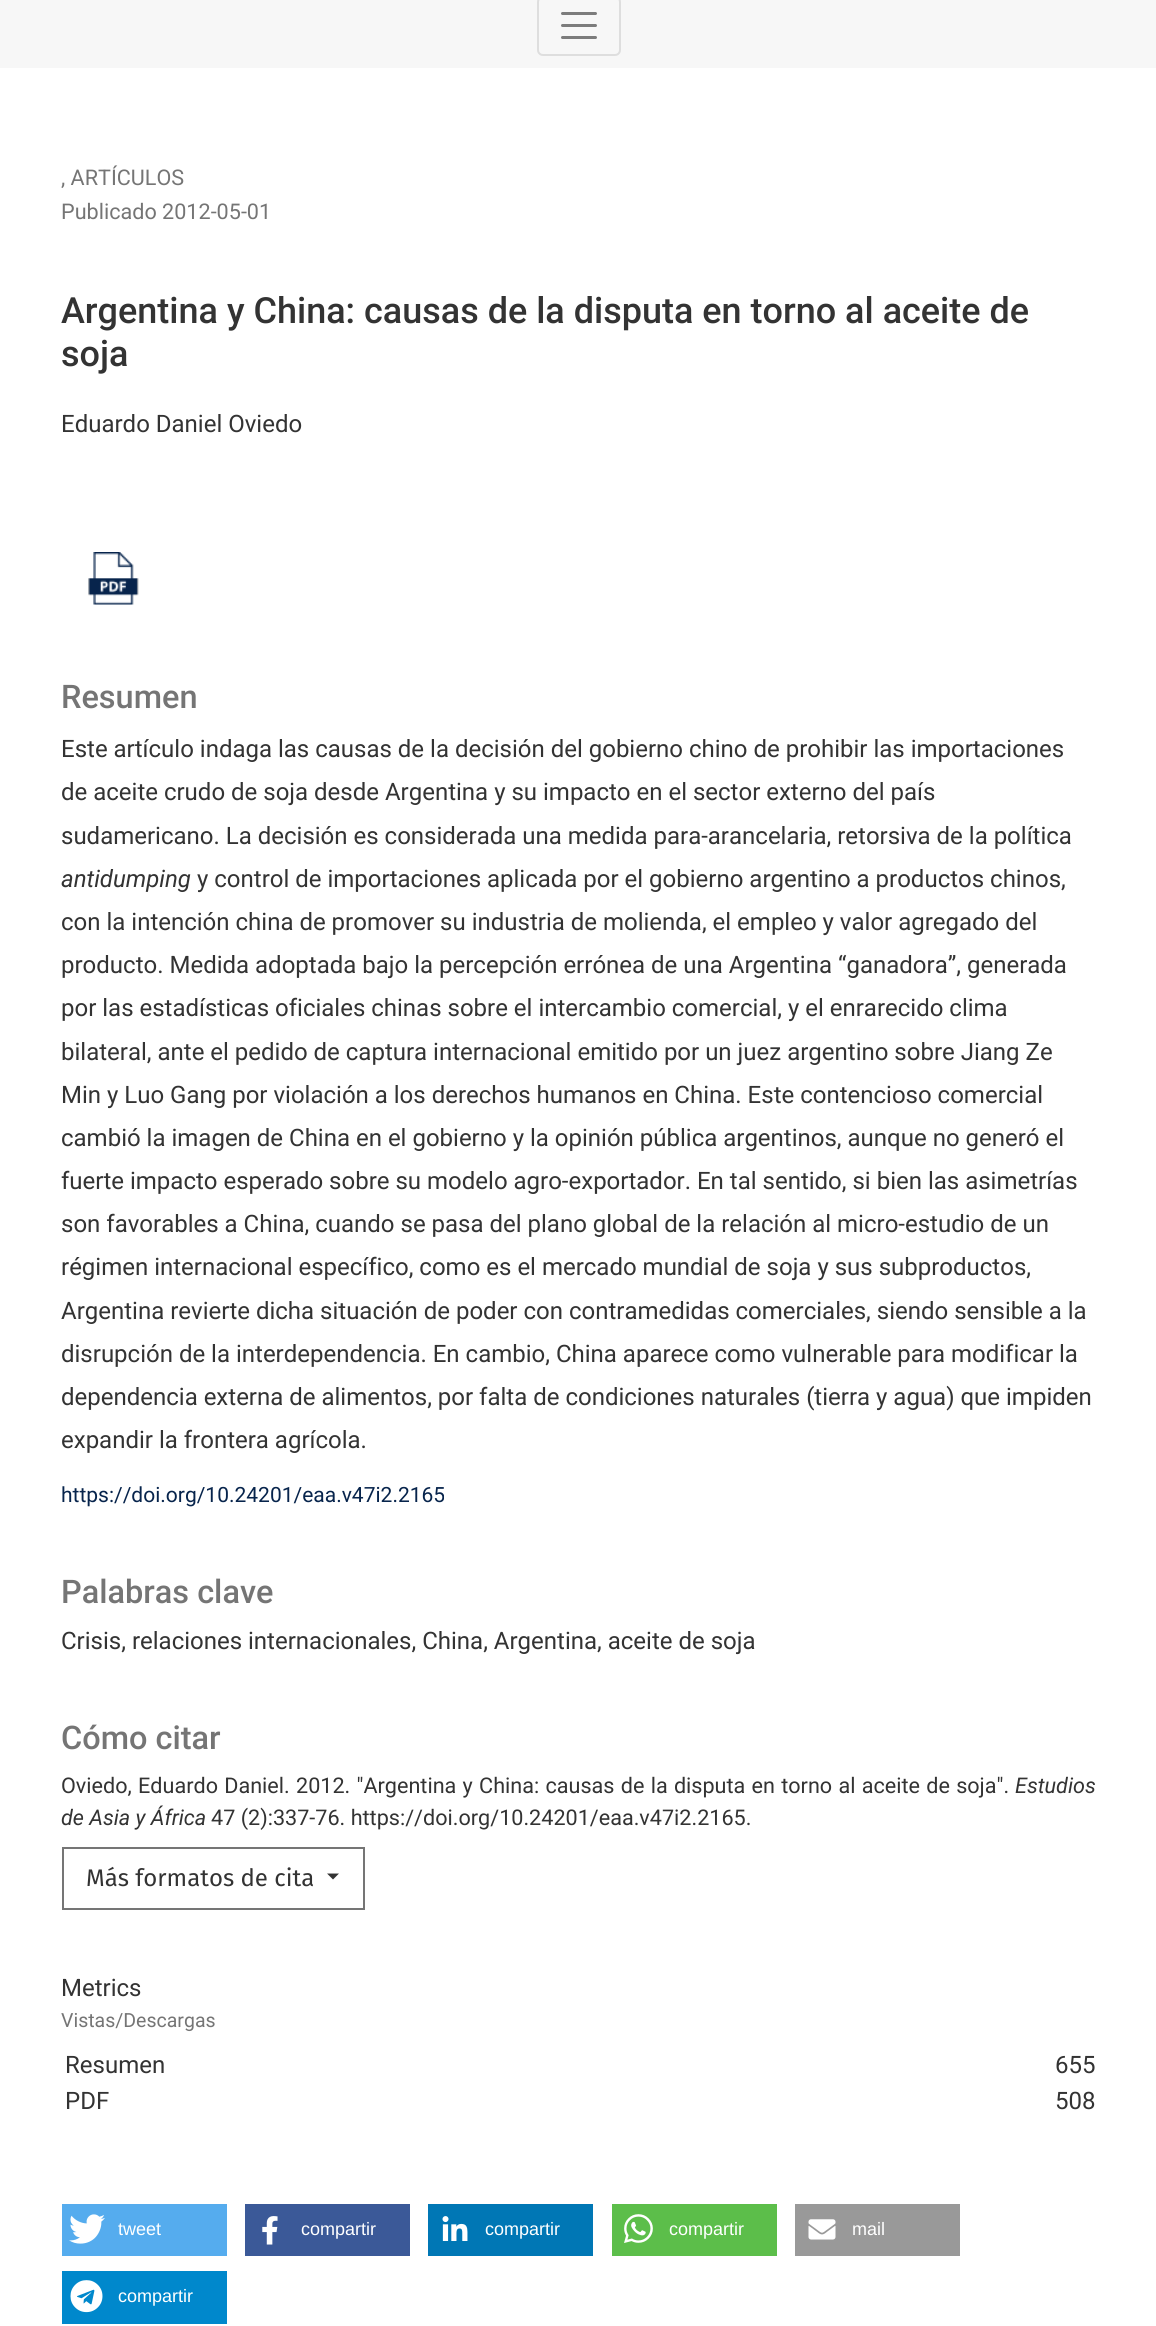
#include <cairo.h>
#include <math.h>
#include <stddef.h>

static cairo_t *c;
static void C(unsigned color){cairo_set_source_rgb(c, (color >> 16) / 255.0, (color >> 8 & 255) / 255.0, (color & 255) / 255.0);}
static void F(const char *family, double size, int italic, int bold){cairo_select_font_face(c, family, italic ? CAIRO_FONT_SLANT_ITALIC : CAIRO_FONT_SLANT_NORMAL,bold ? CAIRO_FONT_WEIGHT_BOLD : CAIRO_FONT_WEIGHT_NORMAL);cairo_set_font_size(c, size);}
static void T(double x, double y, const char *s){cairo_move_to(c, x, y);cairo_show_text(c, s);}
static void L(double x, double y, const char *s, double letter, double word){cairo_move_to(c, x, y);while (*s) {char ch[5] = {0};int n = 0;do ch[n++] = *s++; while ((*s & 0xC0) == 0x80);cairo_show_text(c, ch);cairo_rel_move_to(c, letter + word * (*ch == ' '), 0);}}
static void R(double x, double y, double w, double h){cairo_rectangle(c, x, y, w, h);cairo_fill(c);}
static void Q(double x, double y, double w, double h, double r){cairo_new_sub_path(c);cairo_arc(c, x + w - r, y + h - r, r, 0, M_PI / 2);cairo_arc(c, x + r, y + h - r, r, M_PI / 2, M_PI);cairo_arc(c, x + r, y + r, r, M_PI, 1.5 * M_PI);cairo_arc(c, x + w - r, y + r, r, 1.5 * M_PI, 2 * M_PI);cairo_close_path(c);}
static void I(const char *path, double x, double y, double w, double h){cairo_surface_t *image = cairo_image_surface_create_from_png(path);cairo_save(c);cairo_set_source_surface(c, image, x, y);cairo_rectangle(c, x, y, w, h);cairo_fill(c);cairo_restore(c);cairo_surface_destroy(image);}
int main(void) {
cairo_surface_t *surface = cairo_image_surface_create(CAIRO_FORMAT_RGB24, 1156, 2326);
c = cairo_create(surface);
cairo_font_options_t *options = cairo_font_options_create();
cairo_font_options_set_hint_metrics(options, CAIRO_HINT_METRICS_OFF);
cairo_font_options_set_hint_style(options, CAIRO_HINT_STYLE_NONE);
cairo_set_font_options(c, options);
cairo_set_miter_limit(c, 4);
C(0xffffff);
cairo_paint(c);
C(0xf7f7f7);
R(0,0,1156,68);
Q(538,-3,82,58,5);
C(0xdedede);
cairo_stroke(c);
cairo_new_path(c);
cairo_move_to(c,562.5,13.5);
cairo_line_to(c,595.5,13.5);
cairo_move_to(c,562.5,25.5);
cairo_line_to(c,595.5,25.5);
cairo_move_to(c,562.5,37.5);
cairo_line_to(c,595.5,37.5);
C(0x7c7c7c);
cairo_set_line_width(c,3);
cairo_set_line_cap(c,CAIRO_LINE_CAP_ROUND);
cairo_stroke(c);
F("Roboto",21.6,0,0);
C(0x757575);
T(61,185,", ARTÍCULOS");
T(61,219,"Publicado 2012-05-01");
F("Roboto Medium",36,0,0);
C(0x333333);
T(61,323,"Argentina y China: causas de la disputa en torno al aceite de");
T(61,366,"soja");
F("Roboto",24,0,0);
T(61,432,"Eduardo Daniel Oviedo");
I("1.png",88,552,51,53);
F("Roboto Medium",32.5,0,0);
C(0x757575);
T(61,708,"Resumen");
F("Roboto",24,0,0);
C(0x333333);
T(61,757,"Este artículo indaga las causas de la decisión del gobierno chino de prohibir las importaciones");
T(61,800,"de aceite crudo de soja desde Argentina y su impacto en el sector externo del país");
T(61,844,"sudamericano. La decisión es considerada una medida para-arancelaria, retorsiva de la política");
F("Roboto",24,1,0);
T(61,887,"antidumping");
F("Roboto",24,0,0);
T(197,887,"y control de importaciones aplicada por el gobierno argentino a productos chinos,");
T(61,930,"con la intención china de promover su industria de molienda, el empleo y valor agregado del");
T(61,973,"producto. Medida adoptada bajo la percepción errónea de una Argentina “ganadora”, generada");
T(61,1016,"por las estadísticas oficiales chinas sobre el intercambio comercial, y el enrarecido clima");
T(61,1060,"bilateral, ante el pedido de captura internacional emitido por un juez argentino sobre Jiang Ze");
T(61,1103,"Min y Luo Gang por violación a los derechos humanos en China. Este contencioso comercial");
T(61,1146,"cambió la imagen de China en el gobierno y la opinión pública argentinos, aunque no generó el");
T(61,1189,"fuerte impacto esperado sobre su modelo agro-exportador. En tal sentido, si bien las asimetrías");
T(61,1232,"son favorables a China, cuando se pasa del plano global de la relación al micro-estudio de un");
T(61,1275,"régimen internacional específico, como es el mercado mundial de soja y sus subproductos,");
T(61,1319,"Argentina revierte dicha situación de poder con contramedidas comerciales, siendo sensible a la");
T(61,1362,"disrupción de la interdependencia. En cambio, China aparece como vulnerable para modificar la");
T(61,1405,"dependencia externa de alimentos, por falta de condiciones naturales (tierra y agua) que impiden");
T(61,1448,"expandir la frontera agrícola.");
F("Roboto",21,0,0);
C(0x07244c);
T(61,1502,"https://doi.org/10.24201/eaa.v47i2.2165");
F("Roboto Medium",32.5,0,0);
C(0x757575);
T(61,1603,"Palabras clave");
F("Roboto",24,0,0);
C(0x333333);
T(61,1649,"Crisis, relaciones internacionales, China, Argentina, aceite de soja");
F("Roboto Medium",32.5,0,0);
C(0x757575);
T(61,1749,"Cómo citar");
F("Roboto",21.6,0,0);
C(0x333333);
L(61,1793,"Oviedo, Eduardo Daniel. 2012. \"Argentina y China: causas de la disputa en torno al aceite de soja\".",0,.9);
F("Roboto",21.6,1,0);
T(1015,1793,"Estudios");
T(61,1825,"de Asia y África");
F("Roboto",21.6,0,0);
T(211,1825,"47 (2):337-76. https://doi.org/10.24201/eaa.v47i2.2165.");
cairo_rectangle(c,63,1848,301,61);
C(0x757575);
cairo_set_line_width(c,2);
cairo_set_line_cap(c,CAIRO_LINE_CAP_BUTT);
cairo_stroke(c);
F("Fira Sans",24,0,0);
C(0x333333);
T(86,1886,"Más formatos de cita");
cairo_new_path(c);
cairo_move_to(c,327,1873.5);
cairo_line_to(c,339,1873.5);
cairo_line_to(c,333,1879.5);
cairo_close_path(c);
cairo_fill(c);
F("Roboto",24,0,0);
T(61,1996,"Metrics");
F("Roboto",19.5,0,0);
C(0x757575);
T(61,2027,"Vistas/Descargas");
F("Roboto",24,0,0);
C(0x333333);
T(65,2073,"Resumen");
T(1055,2073,"655");
T(65,2109,"PDF");
T(1055,2109,"508");
C(0x55acee);
R(62,2204,165,52);
I("2.png",69,2214,36,30);
F("Liberation Sans",18,0,0);
C(0xffffff);
T(118,2235,"tweet");
C(0x3b5998);
R(245,2204,165,52);
I("3.png",262,2216,16,29);
C(0xffffff);
T(301,2235,"compartir");
C(0x0077b5);
R(428,2204,165,52);
I("4.png",442,2216,26,25);
C(0xffffff);
T(485,2235,"compartir");
C(0x5cbe4a);
R(612,2204,165,52);
I("5.png",624,2214,29,29);
C(0xffffff);
T(669,2235,"compartir");
C(0x999999);
R(795,2204,165,52);
I("6.png",808,2219,28,21);
C(0xffffff);
T(852,2235,"mail");
C(0x0088cc);
R(62,2271,165,53);
I("7.png",70,2280,33,33);
C(0xffffff);
T(118,2302,"compartir");
cairo_surface_write_to_png(surface, "o.png");
cairo_font_options_destroy(options);
cairo_destroy(c);
cairo_surface_destroy(surface);
return 0;
}
